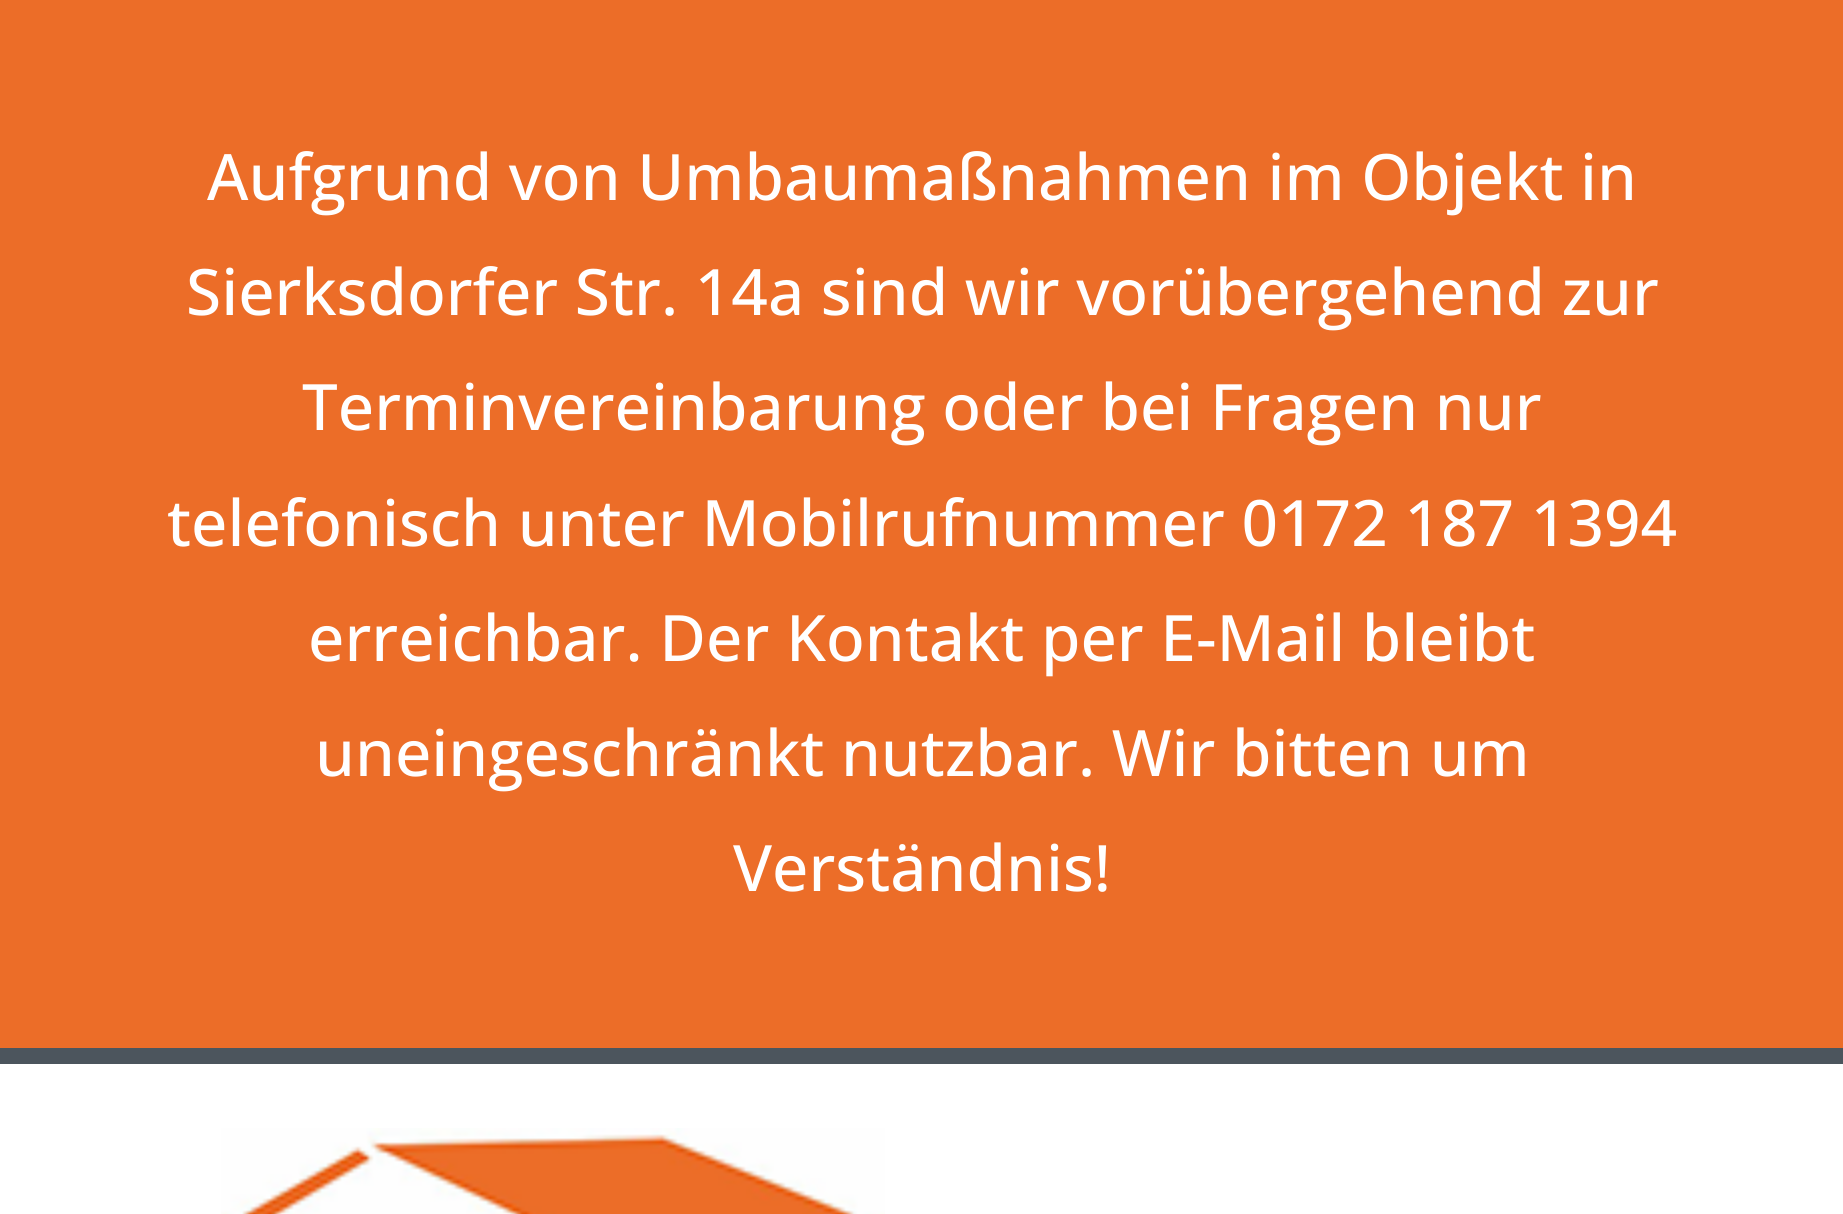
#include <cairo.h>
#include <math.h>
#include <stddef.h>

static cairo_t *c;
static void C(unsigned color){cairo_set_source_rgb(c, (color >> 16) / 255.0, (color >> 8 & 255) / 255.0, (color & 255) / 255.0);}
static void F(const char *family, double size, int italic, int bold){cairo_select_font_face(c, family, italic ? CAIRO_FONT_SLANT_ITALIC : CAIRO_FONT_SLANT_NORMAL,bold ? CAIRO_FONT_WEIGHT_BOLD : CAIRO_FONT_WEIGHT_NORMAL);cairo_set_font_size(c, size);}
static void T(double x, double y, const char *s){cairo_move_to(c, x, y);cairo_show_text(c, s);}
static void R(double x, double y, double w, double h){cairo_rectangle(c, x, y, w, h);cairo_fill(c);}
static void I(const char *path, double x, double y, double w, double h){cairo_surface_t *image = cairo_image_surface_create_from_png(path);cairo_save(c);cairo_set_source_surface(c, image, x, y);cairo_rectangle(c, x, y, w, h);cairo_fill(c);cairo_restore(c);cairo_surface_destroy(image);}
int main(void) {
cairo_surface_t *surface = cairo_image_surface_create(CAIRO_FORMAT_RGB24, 1843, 1214);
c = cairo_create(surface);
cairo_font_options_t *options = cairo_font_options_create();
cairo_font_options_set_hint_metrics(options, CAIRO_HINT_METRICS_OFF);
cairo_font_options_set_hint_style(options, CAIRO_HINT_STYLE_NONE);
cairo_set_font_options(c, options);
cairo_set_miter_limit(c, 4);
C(0xffffff);
cairo_paint(c);
C(0xec6d28);
R(0,0,1843,1048);
C(0x4c555d);
R(0,1048,1843,16);
F("Open Sans Medium",64,0,0);
C(0xffffff);
T(207,200,"Aufgrund von Umbaumaßnahmen im Objekt in");
T(186,315,"Sierksdorfer Str. 14a sind wir vorübergehend zur");
T(302,430,"Terminvereinbarung oder bei Fragen nur");
T(167,546,"telefonisch unter Mobilrufnummer 0172 187 1394");
T(308,661,"erreichbar. Der Kontakt per E-Mail bleibt");
T(315,776,"uneingeschränkt nutzbar. Wir bitten um");
T(733,891,"Verständnis!");
I("1.png",221,1128,664,86);
cairo_surface_write_to_png(surface, "o.png");
cairo_font_options_destroy(options);
cairo_destroy(c);
cairo_surface_destroy(surface);
return 0;
}
